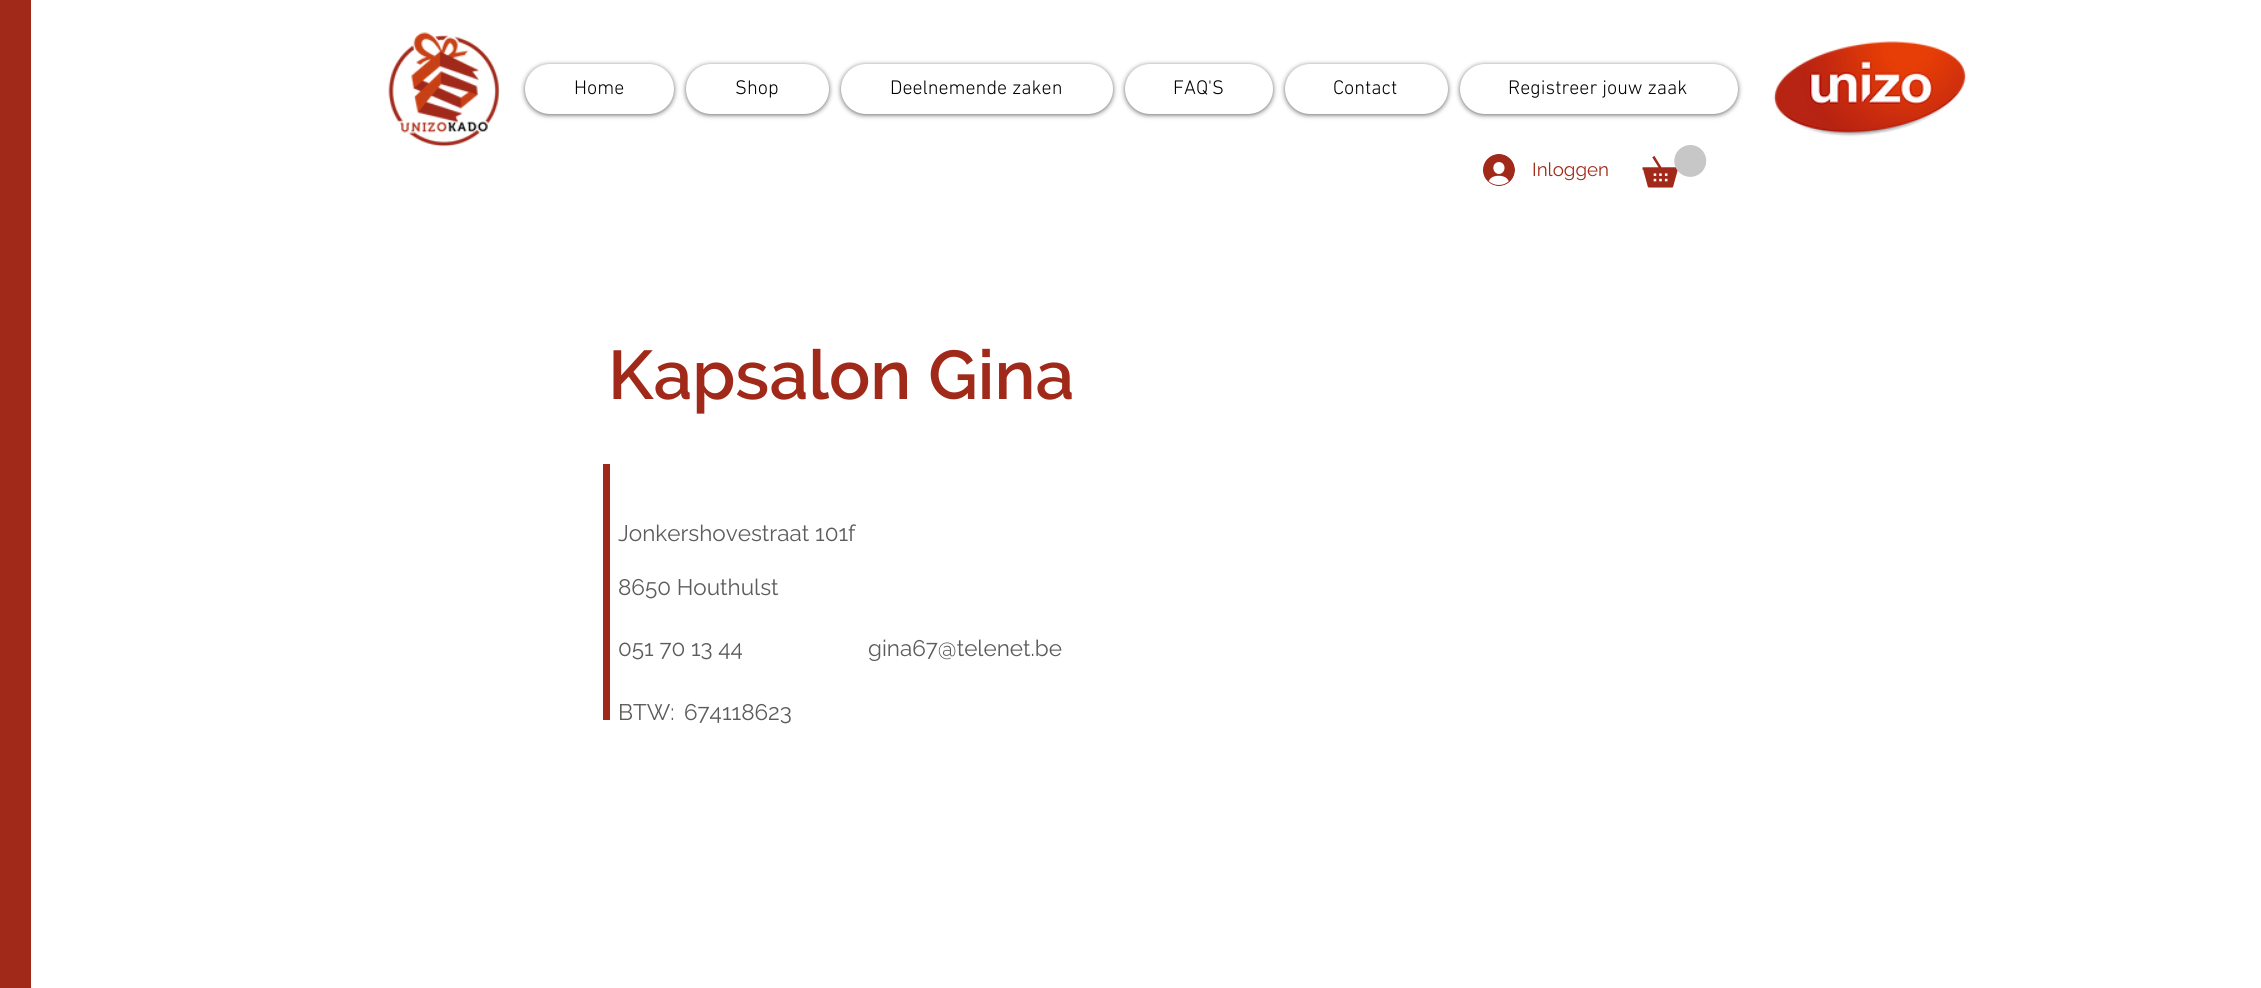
#include <cairo.h>
#include <math.h>
#include <stddef.h>

static cairo_t *c;
static void C(unsigned color){cairo_set_source_rgb(c, (color >> 16) / 255.0, (color >> 8 & 255) / 255.0, (color & 255) / 255.0);}
static void F(const char *family, double size, int italic, int bold){cairo_select_font_face(c, family, italic ? CAIRO_FONT_SLANT_ITALIC : CAIRO_FONT_SLANT_NORMAL,bold ? CAIRO_FONT_WEIGHT_BOLD : CAIRO_FONT_WEIGHT_NORMAL);cairo_set_font_size(c, size);}
static void T(double x, double y, const char *s){cairo_move_to(c, x, y);cairo_show_text(c, s);}
static void R(double x, double y, double w, double h){cairo_rectangle(c, x, y, w, h);cairo_fill(c);}
static void Q(double x, double y, double w, double h, double r){cairo_new_sub_path(c);cairo_arc(c, x + w - r, y + h - r, r, 0, M_PI / 2);cairo_arc(c, x + r, y + h - r, r, M_PI / 2, M_PI);cairo_arc(c, x + r, y + r, r, M_PI, 1.5 * M_PI);cairo_arc(c, x + w - r, y + r, r, 1.5 * M_PI, 2 * M_PI);cairo_close_path(c);}
static void S(double x, double y, double w, double h, double r, double blur, double alpha){cairo_push_group_with_content(c, CAIRO_CONTENT_ALPHA);cairo_set_operator(c, CAIRO_OPERATOR_SOURCE);for (int i = 15; i >= -15 && fmin(w, h) + blur * i / 3 > 0; i -= 2) {double e = blur * i / 6;cairo_set_source_rgba(c, 0, 0, 0, alpha * erfc((i - 1) / 8.5) / 2);Q(x - e, y - e, w + 2 * e, h + 2 * e, fmax(0, fmin(r + e + blur * .6, fmin(w, h) / 2 + e)));cairo_fill(c);}cairo_pattern_t *soft = cairo_pop_group(c);cairo_mask(c, soft);cairo_pattern_destroy(soft);}
static void I(const char *path, double x, double y, double w, double h){cairo_surface_t *image = cairo_image_surface_create_from_png(path);cairo_save(c);cairo_set_source_surface(c, image, x, y);cairo_rectangle(c, x, y, w, h);cairo_fill(c);cairo_restore(c);cairo_surface_destroy(image);}
int main(void) {
cairo_surface_t *surface = cairo_image_surface_create(CAIRO_FORMAT_RGB24, 2261, 988);
c = cairo_create(surface);
cairo_font_options_t *options = cairo_font_options_create();
cairo_font_options_set_hint_metrics(options, CAIRO_HINT_METRICS_OFF);
cairo_font_options_set_hint_style(options, CAIRO_HINT_STYLE_NONE);
cairo_set_font_options(c, options);
cairo_set_miter_limit(c, 4);
C(0xffffff);
cairo_paint(c);
C(0xa0291a);
R(0,0,31,988);
I("1.png",388,32,112,115);
C(0x000000);
S(525,65,149,50,25,2.5,.6);
C(0xffffff);
Q(525,64,149,50,25);
cairo_fill(c);
F("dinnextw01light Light",20,0,0);
C(0x000000);
T(574,94,"Home");
C(0x000000);
S(686,65,143,50,25,2.5,.6);
C(0xffffff);
Q(686,64,143,50,25);
cairo_fill(c);
C(0x000000);
T(735,94,"Shop");
C(0x000000);
S(841,65,272,50,25,2.5,.6);
C(0xffffff);
Q(841,64,272,50,25);
cairo_fill(c);
C(0x000000);
T(890,94,"Deelnemende zaken");
C(0x000000);
S(1125,65,148,50,25,2.5,.6);
C(0xffffff);
Q(1125,64,148,50,25);
cairo_fill(c);
C(0x000000);
T(1173,94,"FAQ'S");
C(0x000000);
S(1285,65,163,50,25,2.5,.6);
C(0xffffff);
Q(1285,64,163,50,25);
cairo_fill(c);
C(0x000000);
T(1333,94,"Contact");
C(0x000000);
S(1460,65,278,50,25,2.5,.6);
C(0xffffff);
Q(1460,64,278,50,25);
cairo_fill(c);
C(0x000000);
T(1508,94,"Registreer jouw zaak");
I("2.png",1773,41,194,96);
I("3.png",1483,154,32,32);
F("Raleway",18.75,0,0);
C(0xa0291a);
T(1532,176,"Inloggen");
I("4.png",1642,145,65,43);
F("Raleway SemiBold",68.75,0,0);
T(608,399,"Kapsalon Gina");
R(603,464,7,256);
F("Raleway",22.5,0,0);
C(0x5c5c5c);
T(618,541,"Jonkershovestraat 101f");
T(618,595,"8650 Houthulst");
T(618,656,"051 70 13 44");
T(868,656,"gina67@telenet.be");
T(618,720,"BTW:");
T(684,720,"674118623");
cairo_surface_write_to_png(surface, "o.png");
cairo_font_options_destroy(options);
cairo_destroy(c);
cairo_surface_destroy(surface);
return 0;
}
